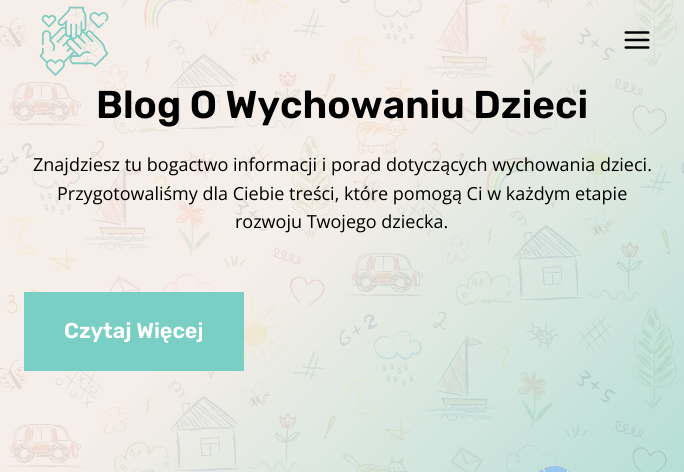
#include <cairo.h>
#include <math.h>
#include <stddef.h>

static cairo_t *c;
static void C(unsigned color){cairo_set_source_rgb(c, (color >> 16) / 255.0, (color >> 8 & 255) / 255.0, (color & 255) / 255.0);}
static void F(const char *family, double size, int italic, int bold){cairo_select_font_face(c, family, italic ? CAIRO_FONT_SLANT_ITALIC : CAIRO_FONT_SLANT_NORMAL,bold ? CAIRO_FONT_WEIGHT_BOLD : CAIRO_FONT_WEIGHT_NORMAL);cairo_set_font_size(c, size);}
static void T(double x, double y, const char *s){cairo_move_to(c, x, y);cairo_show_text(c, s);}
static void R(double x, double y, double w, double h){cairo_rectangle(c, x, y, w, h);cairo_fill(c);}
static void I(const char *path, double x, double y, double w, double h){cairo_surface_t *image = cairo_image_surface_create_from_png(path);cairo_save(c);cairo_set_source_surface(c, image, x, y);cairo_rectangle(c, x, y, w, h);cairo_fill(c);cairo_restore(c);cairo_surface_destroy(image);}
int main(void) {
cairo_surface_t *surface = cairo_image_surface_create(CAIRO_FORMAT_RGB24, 684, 472);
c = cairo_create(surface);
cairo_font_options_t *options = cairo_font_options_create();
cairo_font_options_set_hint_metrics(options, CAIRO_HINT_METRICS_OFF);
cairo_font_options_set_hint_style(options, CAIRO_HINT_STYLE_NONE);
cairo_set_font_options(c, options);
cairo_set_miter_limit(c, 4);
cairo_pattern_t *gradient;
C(0xffffff);
cairo_paint(c);
gradient = cairo_pattern_create_linear(-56,56,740,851);
cairo_pattern_add_color_stop_rgba(gradient,.33,0.961,0.925,0.898,1);
cairo_pattern_add_color_stop_rgba(gradient,1,0.478,0.812,0.769,1);
cairo_set_source(c,gradient);
cairo_pattern_destroy(gradient);
R(0,0,684,472);
I("3.png",0,0,684,472);
I("1.png",39,6,70,70);
I("2.png",624,31,26,18);
F("Rubik SemiBold",38.75,0,0);
C(0x000000);
T(96,118,"Blog O Wychowaniu Dzieci");
F("Open Sans",18,0,0);
T(33,171,"Znajdziesz tu bogactwo informacji i porad dotyczących wychowania dzieci.");
T(57,200,"Przygotowaliśmy dla Ciebie treści, które pomogą Ci w każdym etapie");
T(235,228,"rozwoju Twojego dziecka.");
C(0x7acfc4);
R(24,292,220,79);
F("Rubik SemiBold",21.5,0,0);
C(0xffffff);
T(64,338,"Czytaj Więcej");
I("4.png",538,465,33,7);
cairo_surface_write_to_png(surface, "o.png");
cairo_font_options_destroy(options);
cairo_destroy(c);
cairo_surface_destroy(surface);
return 0;
}
